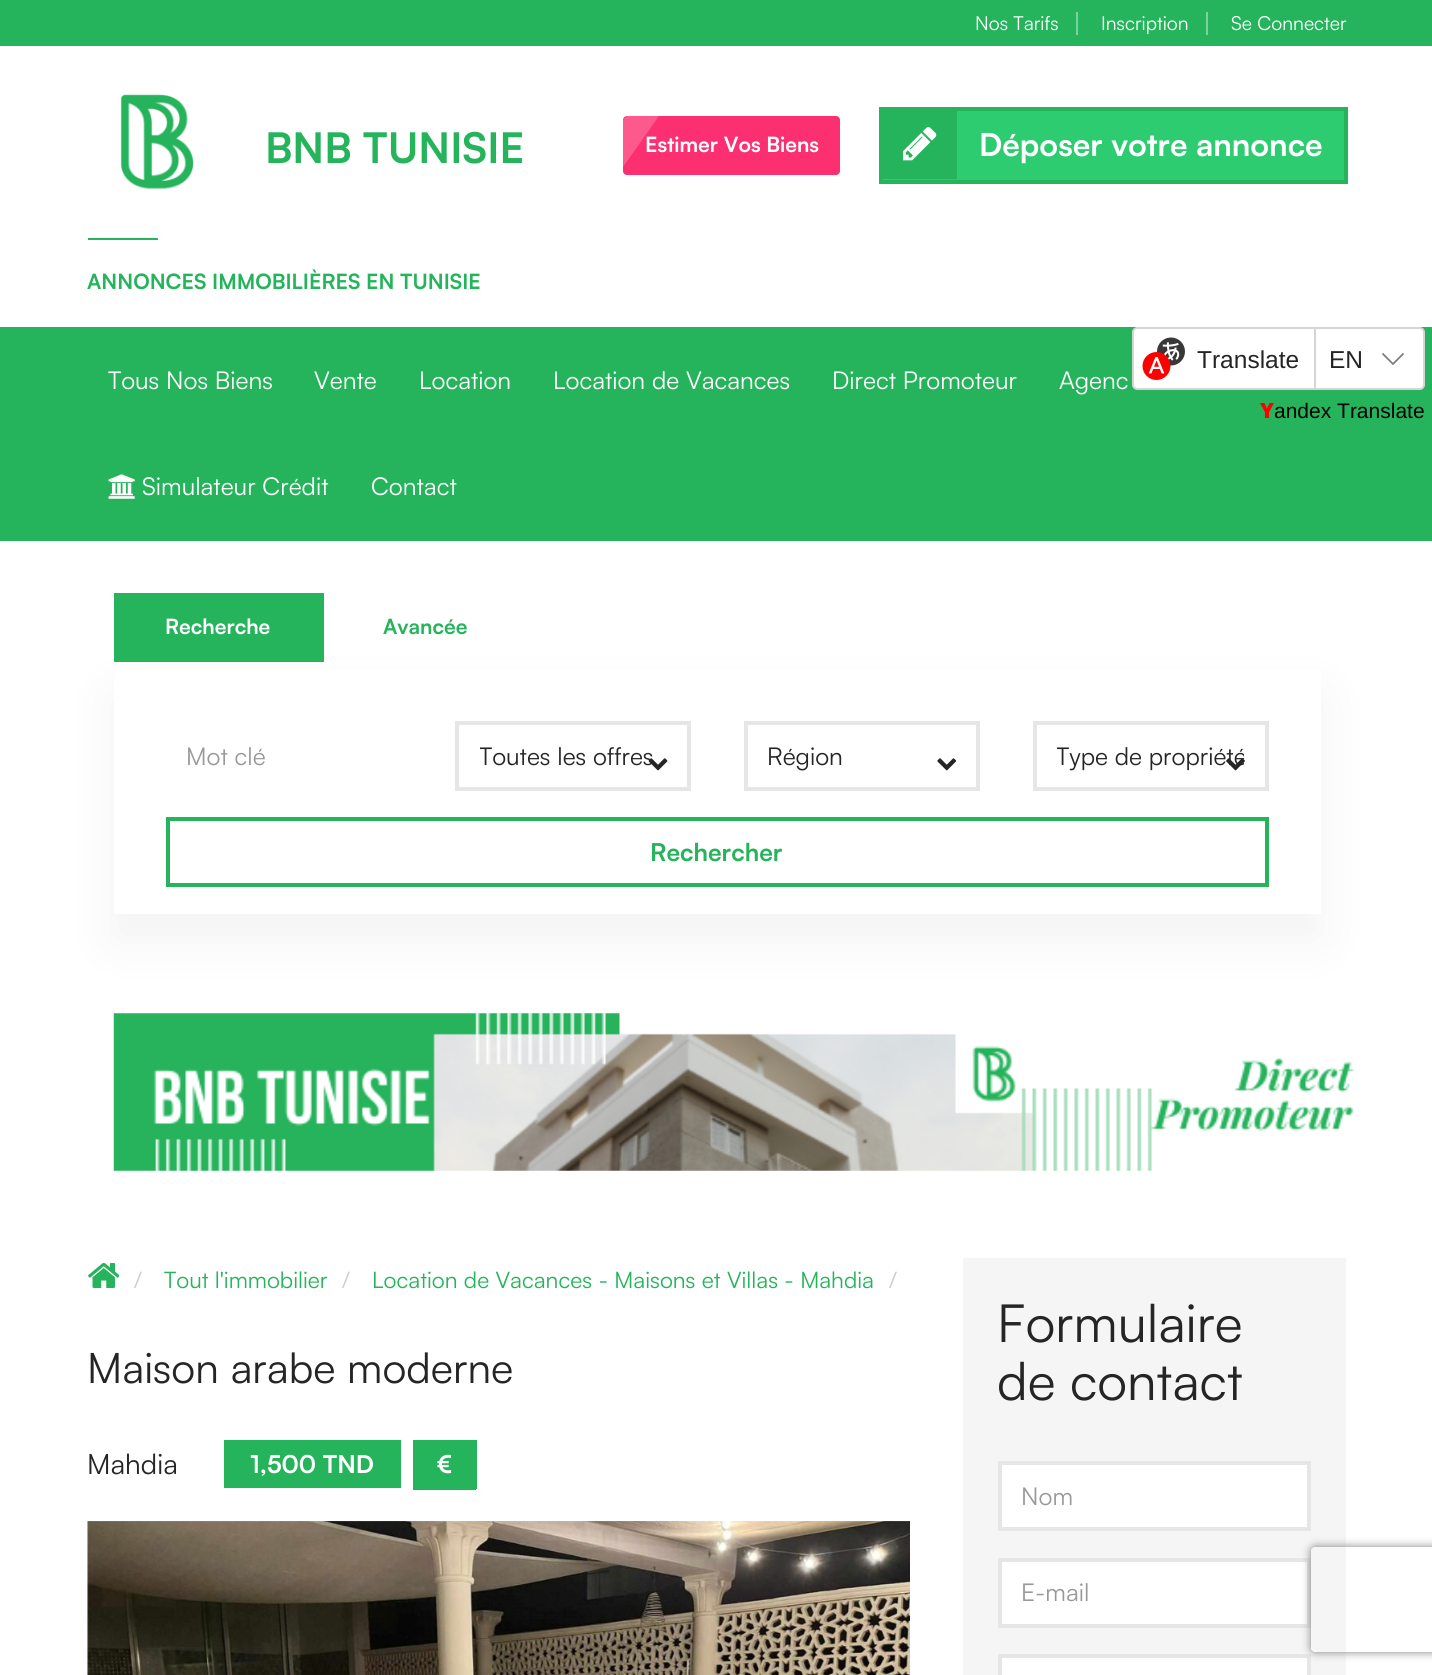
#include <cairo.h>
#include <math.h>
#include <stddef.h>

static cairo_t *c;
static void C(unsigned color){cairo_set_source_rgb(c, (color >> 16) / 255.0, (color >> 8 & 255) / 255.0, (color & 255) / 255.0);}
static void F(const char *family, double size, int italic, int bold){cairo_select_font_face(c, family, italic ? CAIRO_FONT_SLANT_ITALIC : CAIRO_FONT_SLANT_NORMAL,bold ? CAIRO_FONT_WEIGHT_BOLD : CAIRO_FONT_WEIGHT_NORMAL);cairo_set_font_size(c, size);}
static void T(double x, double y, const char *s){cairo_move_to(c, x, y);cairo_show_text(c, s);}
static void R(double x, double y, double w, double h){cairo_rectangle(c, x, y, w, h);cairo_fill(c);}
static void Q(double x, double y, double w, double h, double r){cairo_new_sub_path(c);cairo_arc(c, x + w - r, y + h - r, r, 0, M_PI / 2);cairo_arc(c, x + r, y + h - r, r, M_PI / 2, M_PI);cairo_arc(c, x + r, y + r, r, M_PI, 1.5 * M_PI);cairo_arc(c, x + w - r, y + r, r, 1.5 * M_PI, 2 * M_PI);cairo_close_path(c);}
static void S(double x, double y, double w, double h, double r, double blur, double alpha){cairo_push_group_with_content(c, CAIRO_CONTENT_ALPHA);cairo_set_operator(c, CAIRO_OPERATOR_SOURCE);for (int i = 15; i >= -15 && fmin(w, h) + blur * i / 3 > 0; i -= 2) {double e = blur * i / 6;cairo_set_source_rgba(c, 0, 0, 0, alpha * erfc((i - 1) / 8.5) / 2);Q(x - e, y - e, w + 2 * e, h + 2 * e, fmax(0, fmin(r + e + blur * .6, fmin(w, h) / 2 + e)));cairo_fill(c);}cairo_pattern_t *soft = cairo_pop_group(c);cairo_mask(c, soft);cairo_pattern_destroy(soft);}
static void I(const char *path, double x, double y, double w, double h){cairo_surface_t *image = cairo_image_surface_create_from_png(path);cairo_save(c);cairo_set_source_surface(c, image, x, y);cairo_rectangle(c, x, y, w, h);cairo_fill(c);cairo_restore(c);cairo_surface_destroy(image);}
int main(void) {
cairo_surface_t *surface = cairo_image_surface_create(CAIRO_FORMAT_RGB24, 1432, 1675);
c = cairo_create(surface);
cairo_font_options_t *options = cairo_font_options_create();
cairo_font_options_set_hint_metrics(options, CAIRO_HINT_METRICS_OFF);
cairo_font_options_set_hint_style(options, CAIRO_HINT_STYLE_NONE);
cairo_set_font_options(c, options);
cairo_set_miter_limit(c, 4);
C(0xffffff);
cairo_paint(c);
C(0x25b45b);
R(0,0,1432,46);
C(0x7cd29d);
R(1076,12,2,23);
F("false",19.25,0,0);
C(0xffffff);
T(975,30,"Nos Tarifs");
C(0x7cd29d);
R(1206,12,2,23);
C(0xffffff);
T(1101,30,"Inscription");
T(1231,30,"Se Connecter");
I("1.png",120,94,74,96);
F("false",42,0,1);
C(0x25b45b);
T(265,163,"BNB TUNISIE");
R(88,238,70,2);
F("false",21,0,1);
T(87,289,"ANNONCES IMMOBILIÈRES EN TUNISIE");
C(0xfc2f70);
Q(623,116,217,59,4);
cairo_fill(c);
cairo_set_source_rgba(c,1,1,1,0.2);
cairo_new_path(c);
cairo_move_to(c,627,116);
cairo_line_to(c,659,116);
cairo_line_to(c,623,167);
cairo_line_to(c,623,120);
cairo_line_to(c,626,116);
cairo_close_path(c);
cairo_fill(c);
C(0xffffff);
T(645,152,"Estimer Vos Biens");
C(0x2ecc71);
cairo_rectangle(c,881,109,465,73);
cairo_fill_preserve(c);
C(0x25b45b);
cairo_set_line_width(c,4);
cairo_stroke(c);
R(883,111,74,68);
I("2.png",903,127,34,34);
F("false",31.5,0,1);
C(0xffffff);
T(979,156,"Déposer votre annonce");
C(0x25b45b);
R(0,327,1432,214);
F("false",24.5,0,0);
C(0xffffff);
T(108,389,"Tous Nos Biens");
T(314,389,"Vente");
T(419,389,"Location");
T(553,389,"Location de Vacances");
T(832,389,"Direct Promoteur");
T(1059,389,"Agenc");
cairo_new_path(c);
cairo_move_to(c,1137,328);
cairo_line_to(c,1315,328);
cairo_line_to(c,1315,389);
cairo_line_to(c,1137,389);
cairo_curve_to(c,1135,389,1133,387,1133,385);
cairo_line_to(c,1133,332);
cairo_curve_to(c,1133,330,1135,328,1137,328);
cairo_close_path(c);
cairo_fill_preserve(c);
C(0xd5d5d5);
cairo_set_line_width(c,2);
cairo_stroke(c);
I("3.png",1142,337,43,43);
F("Liberation Sans",24.5,0,0);
C(0x252525);
T(1197,368,"Translate");
C(0xffffff);
cairo_new_path(c);
cairo_move_to(c,1315,328);
cairo_line_to(c,1420,328);
cairo_curve_to(c,1422,328,1424,330,1424,332);
cairo_line_to(c,1424,385);
cairo_curve_to(c,1424,387,1422,389,1420,389);
cairo_line_to(c,1315,389);
cairo_close_path(c);
cairo_fill_preserve(c);
C(0xd5d5d5);
cairo_stroke(c);
C(0x252525);
T(1329,368,"EN");
I("4.png",1382,353,22,12);
F("Noto Sans Black",21,0,0);
C(0xff0000);
T(1260,418,"Y");
F("Liberation Sans",21,0,0);
C(0x000000);
T(1274,418,"andex Translate");
I("5.png",108,474,27,25);
F("false",24.5,0,0);
C(0xffffff);
T(142,495,"Simulateur Crédit");
T(371,495,"Contact");
I("9.png",113,1013,1242,158);
cairo_save(c);
cairo_set_fill_rule(c,CAIRO_FILL_RULE_EVEN_ODD);
cairo_new_path(c);
cairo_move_to(c,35,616);
cairo_line_to(c,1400,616);
cairo_line_to(c,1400,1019);
cairo_line_to(c,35,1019);
cairo_close_path(c);
cairo_move_to(c,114,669);
cairo_line_to(c,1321,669);
cairo_line_to(c,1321,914);
cairo_line_to(c,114,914);
cairo_close_path(c);
cairo_clip(c);
C(0x000000);
S(114,695,1207,245,0,26,.05);
cairo_restore(c);
C(0x25b45b);
R(114,593,210,69);
F("false",21,0,1);
C(0xffffff);
T(165,634,"Recherche");
C(0x25b45b);
T(383,634,"Avancée");
cairo_set_source_rgba(c,1,1,1,0.9);
R(115,913,1205,1);
F("false",24.5,0,0);
C(0x999999);
T(186,765,"Mot clé");
cairo_rectangle(c,457,723,232,66);
C(0xe6e6e6);
cairo_set_line_width(c,4);
cairo_stroke(c);
cairo_save(c);
cairo_rectangle(c,480,739,187,35);
cairo_clip(c);
C(0x252525);
T(479,765,"Toutes les offres");
cairo_restore(c);
I("6.png",648,758,20,13);
cairo_rectangle(c,746,723,232,66);
cairo_stroke(c);
C(0x252525);
T(767,765,"Région");
I("7.png",937,758,20,13);
cairo_rectangle(c,1035,723,232,66);
C(0xe6e6e6);
cairo_stroke(c);
cairo_save(c);
cairo_rectangle(c,1057,739,187,35);
cairo_clip(c);
C(0x252525);
T(1056,765,"Type de propriété");
cairo_restore(c);
I("8.png",1226,758,19,13);
cairo_rectangle(c,168,819,1099,66);
C(0x25b45b);
cairo_stroke(c);
F("false",24.5,0,1);
T(650,861,"Rechercher");
I("10.png",88,1262,31,26);
F("false",22.75,0,0);
C(0xcccccc);
T(134,1288,"/");
C(0x25b45b);
T(164,1288,"Tout l'immobilier");
C(0xcccccc);
T(342,1288,"/");
C(0x25b45b);
T(372,1288,"Location de Vacances - Maisons et Villas - Mahdia");
C(0xcccccc);
T(889,1288,"/");
F("false",42,0,0);
C(0x252525);
T(87,1383,"Maison arabe moderne");
F("false",28,0,0);
T(87,1474,"Mahdia");
C(0x25b45b);
R(224,1440,177,48);
F("false",24.5,0,1);
C(0xffffff);
T(250,1473,"1,500 TND");
C(0x25b45b);
R(417,1442,56,46);
R(413,1440,63,2);
R(473,1440,4,49);
R(413,1488,63,2);
R(413,1440,4,49);
C(0xffffff);
T(437,1473,"€");
I("11.png",87,1521,823,154);
C(0xf5f5f5);
R(963,1258,383,417);
F("false",52.5,0,0);
C(0x252525);
T(997,1342,"Formulaire");
T(997,1400,"de contact");
C(0xffffff);
cairo_rectangle(c,1000,1463,309,66);
cairo_fill_preserve(c);
C(0xe6e6e6);
cairo_stroke(c);
F("false",24.5,0,0);
C(0x999999);
T(1021,1505,"Nom");
C(0xffffff);
cairo_rectangle(c,1000,1560,309,66);
cairo_fill_preserve(c);
C(0xe6e6e6);
cairo_stroke(c);
C(0x999999);
T(1021,1601,"E-mail");
C(0xffffff);
cairo_rectangle(c,1000,1656,309,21);
cairo_fill_preserve(c);
C(0xe6e6e6);
cairo_stroke(c);
cairo_save(c);
cairo_set_fill_rule(c,CAIRO_FILL_RULE_EVEN_ODD);
cairo_new_path(c);
cairo_move_to(c,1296,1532);
cairo_line_to(c,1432,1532);
cairo_line_to(c,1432,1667);
cairo_line_to(c,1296,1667);
cairo_close_path(c);
cairo_move_to(c,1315,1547);
cairo_line_to(c,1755,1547);
cairo_curve_to(c,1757,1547,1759,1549,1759,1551);
cairo_line_to(c,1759,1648);
cairo_curve_to(c,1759,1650,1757,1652,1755,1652);
cairo_line_to(c,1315,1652);
cairo_curve_to(c,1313,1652,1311,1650,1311,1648);
cairo_line_to(c,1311,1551);
cairo_curve_to(c,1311,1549,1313,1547,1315,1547);
cairo_close_path(c);
cairo_clip(c);
C(0x808080);
S(1311,1547,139,105,4,4.5,1);
cairo_restore(c);
cairo_surface_write_to_png(surface, "o.png");
cairo_font_options_destroy(options);
cairo_destroy(c);
cairo_surface_destroy(surface);
return 0;
}
